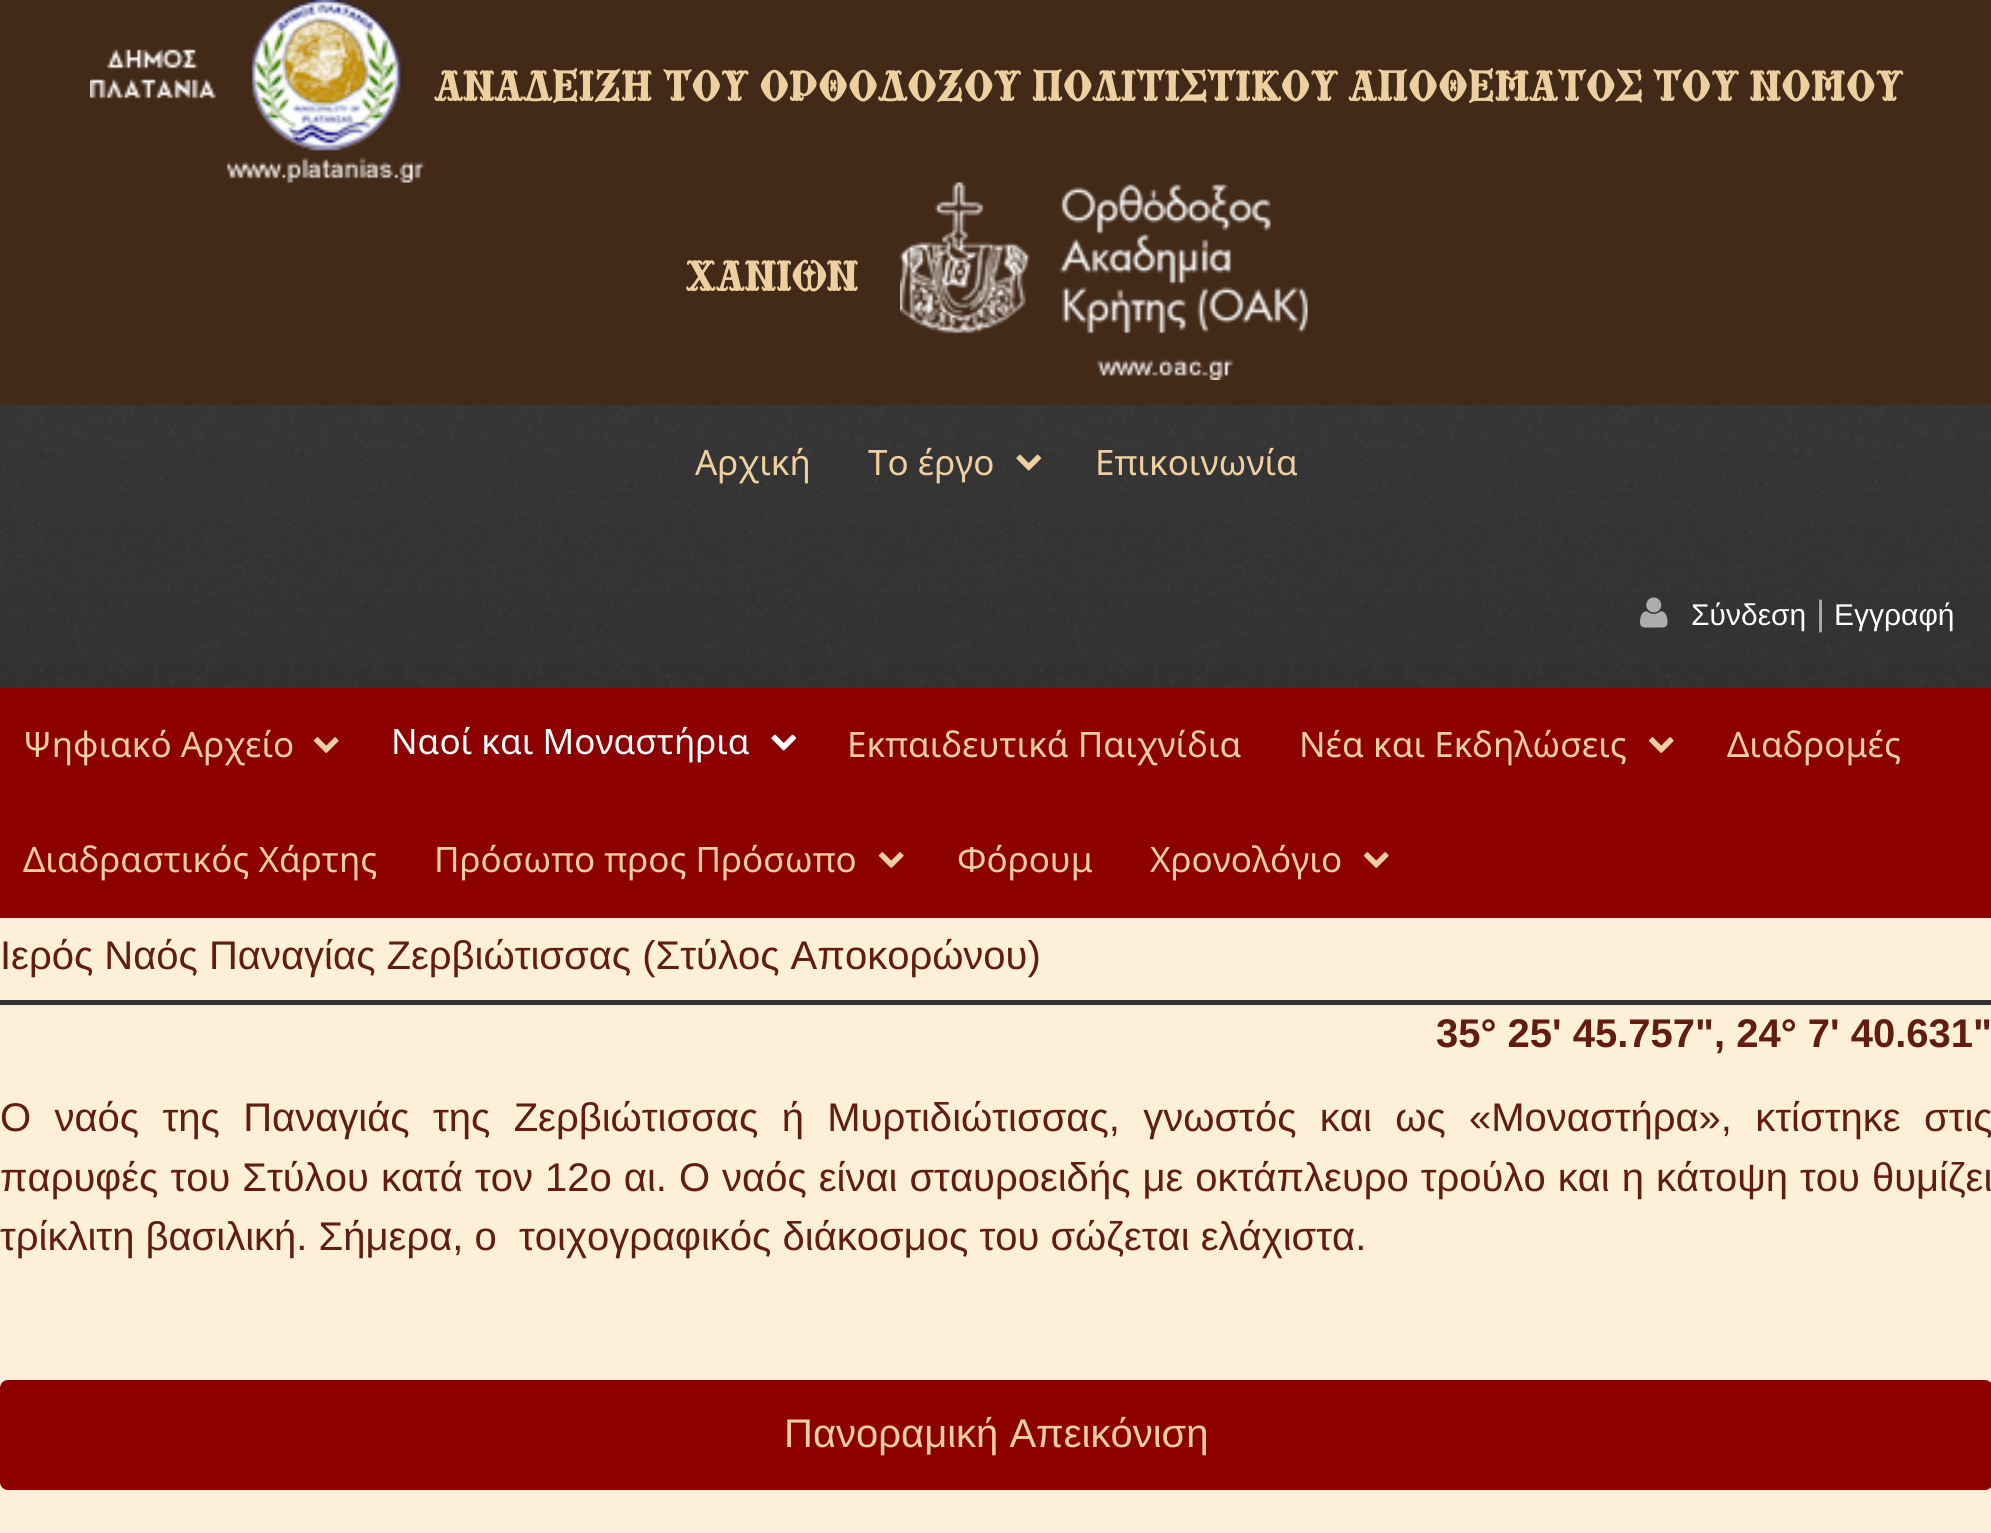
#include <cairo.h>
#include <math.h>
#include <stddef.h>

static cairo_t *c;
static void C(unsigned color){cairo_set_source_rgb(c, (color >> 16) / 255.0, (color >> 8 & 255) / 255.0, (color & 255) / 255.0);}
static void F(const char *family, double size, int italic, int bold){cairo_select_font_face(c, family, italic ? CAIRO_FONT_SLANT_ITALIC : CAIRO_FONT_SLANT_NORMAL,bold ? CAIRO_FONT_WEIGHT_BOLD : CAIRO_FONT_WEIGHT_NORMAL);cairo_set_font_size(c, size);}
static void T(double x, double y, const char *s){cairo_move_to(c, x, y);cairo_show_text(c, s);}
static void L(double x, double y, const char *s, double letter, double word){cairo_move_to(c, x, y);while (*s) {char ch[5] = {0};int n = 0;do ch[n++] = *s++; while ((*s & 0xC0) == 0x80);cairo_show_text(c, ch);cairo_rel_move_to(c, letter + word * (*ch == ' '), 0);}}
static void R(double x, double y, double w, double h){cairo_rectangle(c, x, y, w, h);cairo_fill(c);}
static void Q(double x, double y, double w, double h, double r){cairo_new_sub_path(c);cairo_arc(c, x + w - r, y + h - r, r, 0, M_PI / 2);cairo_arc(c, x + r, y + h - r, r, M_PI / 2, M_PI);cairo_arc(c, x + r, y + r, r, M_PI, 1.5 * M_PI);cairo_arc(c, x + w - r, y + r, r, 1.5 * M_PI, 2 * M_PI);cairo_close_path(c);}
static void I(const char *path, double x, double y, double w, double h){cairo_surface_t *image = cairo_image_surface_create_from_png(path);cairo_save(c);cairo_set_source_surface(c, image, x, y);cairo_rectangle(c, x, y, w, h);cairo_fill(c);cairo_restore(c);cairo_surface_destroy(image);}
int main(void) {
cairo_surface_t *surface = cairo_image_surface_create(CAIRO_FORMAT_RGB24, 1991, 1533);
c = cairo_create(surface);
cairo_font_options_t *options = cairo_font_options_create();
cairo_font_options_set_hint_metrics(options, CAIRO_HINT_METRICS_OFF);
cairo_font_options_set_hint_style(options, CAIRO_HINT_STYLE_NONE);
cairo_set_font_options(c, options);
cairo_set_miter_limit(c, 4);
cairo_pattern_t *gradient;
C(0xfdefd8);
cairo_paint(c);
gradient = cairo_pattern_create_linear(996,0,996,918);
cairo_pattern_add_color_stop_rgba(gradient,0,0.231,0.231,0.231,1);
cairo_pattern_add_color_stop_rgba(gradient,1,0.18,0.18,0.18,1);
cairo_set_source(c,gradient);
cairo_pattern_destroy(gradient);
R(0,405,1991,283);
C(0x432918);
R(0,0,1991,405);
I("1.png",90,0,335,183);
F("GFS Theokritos",45,0,1);
C(0xeecfa0);
T(434,101,"ΑΝΑΔΕΙΞΗ ΤΟΥ ΟΡΘΟΔΟΞΟΥ ΠΟΛΙΤΙΣΤΙΚΟΥ ΑΠΟΘΕΜΑΤΟΣ ΤΟΥ ΝΟΜΟΥ");
T(685,291,"ΧΑΝΙΩΝ");
I("2.png",900,182,408,198);
I("3.png",0,405,1991,283);
F("Noto Sans",35,0,0);
T(695,475,"Αρχική");
T(868,475,"Το έργο");
I("4.png",1016,454,26,17);
T(1095,475,"Επικοινωνία");
I("5.png",1640,597,28,31);
F("Liberation Sans",30,0,0);
C(0xffffff);
T(1691,625,"Σύνδεση");
F("Liberation Sans",35,0,0);
C(0xadadad);
T(1816,625,"|");
F("Liberation Sans",30,0,0);
C(0xffffff);
T(1834,625,"Εγγραφή");
C(0x8d0000);
R(0,688,1991,230);
F("Noto Sans",35,0,0);
C(0xeecfa0);
T(23,757,"Ψηφιακό Αρχείο");
I("6.png",313,737,26,16);
C(0xffffff);
T(391,754,"Ναοί και Μοναστήρια");
I("7.png",771,734,26,17);
C(0xeecfa0);
T(847,757,"Εκπαιδευτικά Παιχνίδια");
T(1299,757,"Νέα και Εκδηλώσεις");
I("6.png",1648,737,26,16);
T(1727,757,"Διαδρομές");
T(23,872,"Διαδραστικός Χάρτης");
T(434,872,"Πρόσωπο προς Πρόσωπο");
I("6.png",878,852,26,16);
T(957,872,"Φόρουμ");
T(1150,872,"Χρονολόγιο");
I("6.png",1363,852,26,16);
C(0x333333);
R(0,1000,1991,5);
F("Liberation Sans",40,0,0);
C(0x621c10);
T(0,969,"Ιερός Ναός Παναγίας Ζερβιώτισσας (Στύλος Αποκορώνου)");
F("Liberation Sans",40,0,1);
T(1436,1047,"35° 25' 45.757\", 24° 7' 40.631\"");
F("Liberation Sans",40,0,0);
L(0,1131,"Ο ναός της Παναγιάς της Ζερβιώτισσας ή Μυρτιδιώτισσας, γνωστός και ως «Μοναστήρα», κτίστηκε στις",0,12.25);
L(0,1191,"παρυφές του Στύλου κατά τον 12ο αι. Ο ναός είναι σταυροειδής με οκτάπλευρο τρούλο και η κάτοψη του θυμίζει",0,.9);
T(0,1250,"τρίκλιτη βασιλική. Σήμερα, ο  τοιχογραφικός διάκοσμος του σώζεται ελάχιστα.");
C(0x8d0000);
Q(0,1380,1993,110,8);
cairo_fill(c);
C(0xeecfa0);
T(784,1447,"Πανοραμική Απεικόνιση");
cairo_surface_write_to_png(surface, "o.png");
cairo_font_options_destroy(options);
cairo_destroy(c);
cairo_surface_destroy(surface);
return 0;
}
